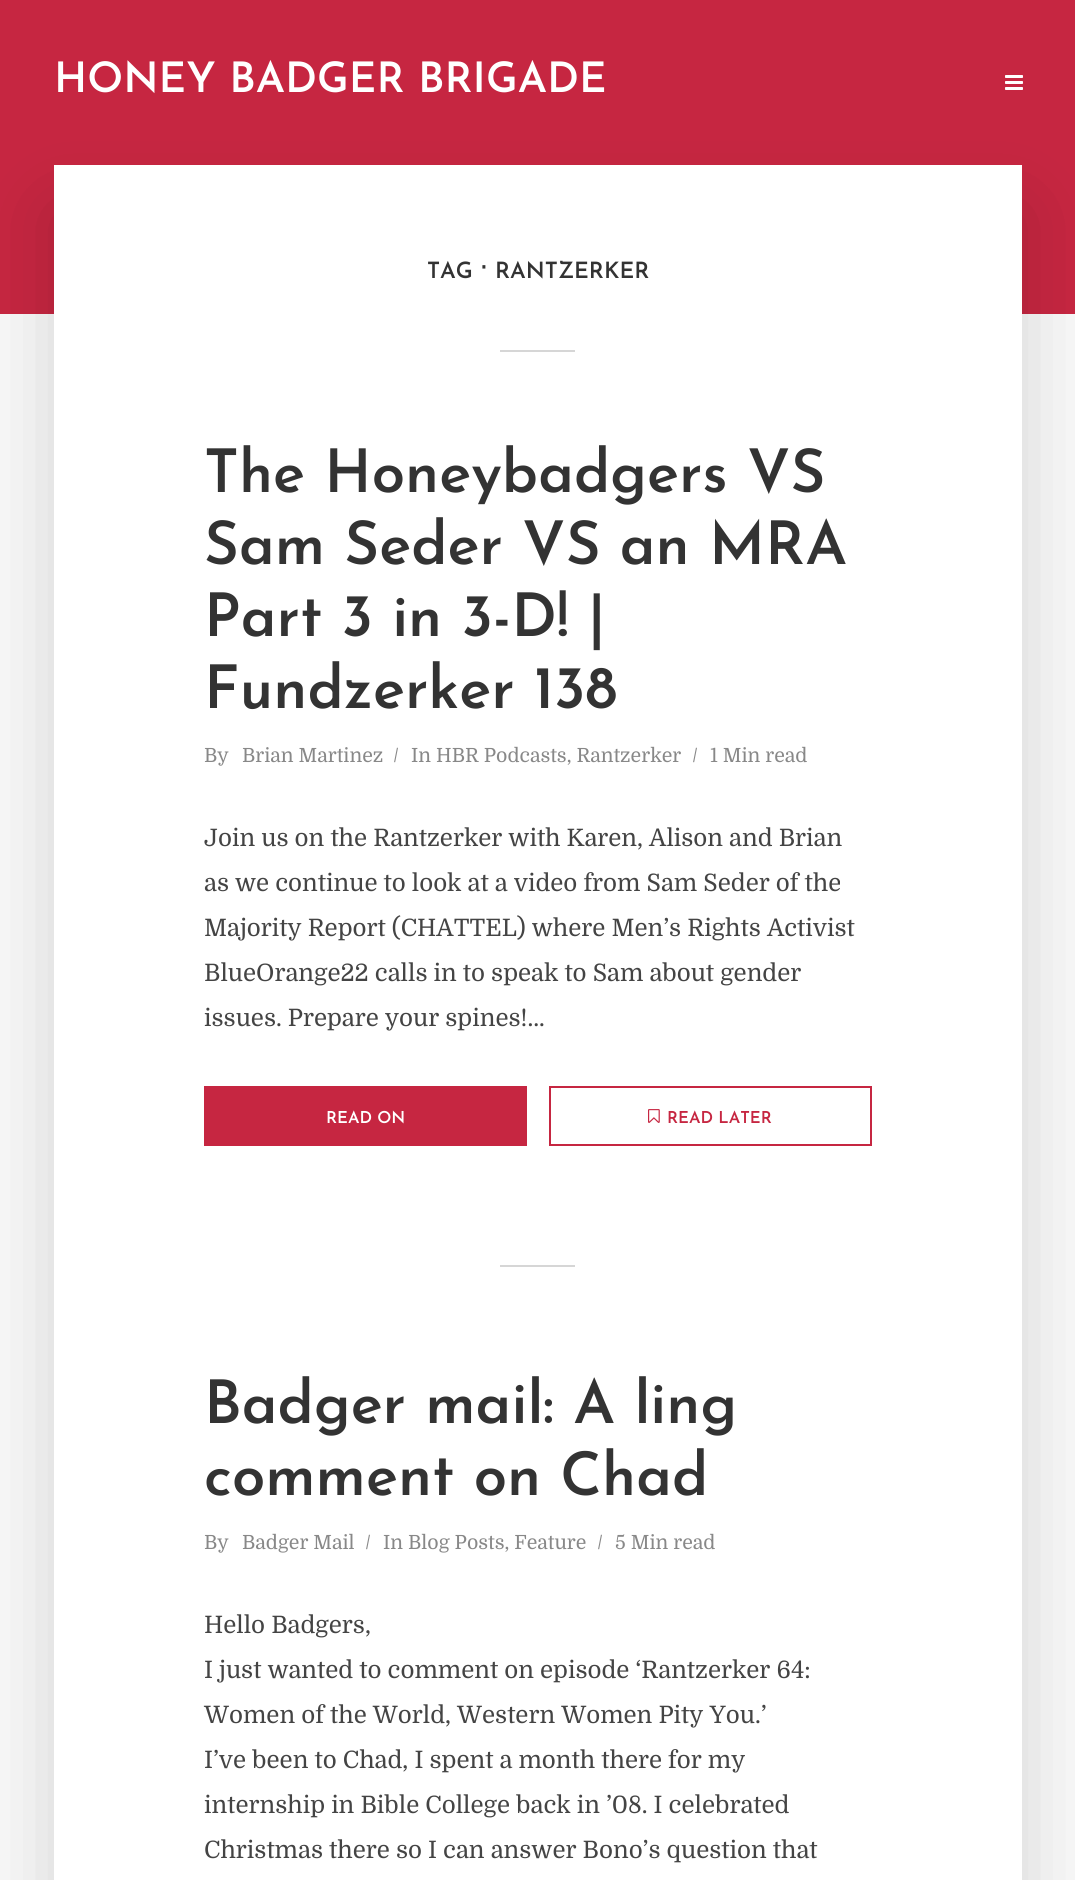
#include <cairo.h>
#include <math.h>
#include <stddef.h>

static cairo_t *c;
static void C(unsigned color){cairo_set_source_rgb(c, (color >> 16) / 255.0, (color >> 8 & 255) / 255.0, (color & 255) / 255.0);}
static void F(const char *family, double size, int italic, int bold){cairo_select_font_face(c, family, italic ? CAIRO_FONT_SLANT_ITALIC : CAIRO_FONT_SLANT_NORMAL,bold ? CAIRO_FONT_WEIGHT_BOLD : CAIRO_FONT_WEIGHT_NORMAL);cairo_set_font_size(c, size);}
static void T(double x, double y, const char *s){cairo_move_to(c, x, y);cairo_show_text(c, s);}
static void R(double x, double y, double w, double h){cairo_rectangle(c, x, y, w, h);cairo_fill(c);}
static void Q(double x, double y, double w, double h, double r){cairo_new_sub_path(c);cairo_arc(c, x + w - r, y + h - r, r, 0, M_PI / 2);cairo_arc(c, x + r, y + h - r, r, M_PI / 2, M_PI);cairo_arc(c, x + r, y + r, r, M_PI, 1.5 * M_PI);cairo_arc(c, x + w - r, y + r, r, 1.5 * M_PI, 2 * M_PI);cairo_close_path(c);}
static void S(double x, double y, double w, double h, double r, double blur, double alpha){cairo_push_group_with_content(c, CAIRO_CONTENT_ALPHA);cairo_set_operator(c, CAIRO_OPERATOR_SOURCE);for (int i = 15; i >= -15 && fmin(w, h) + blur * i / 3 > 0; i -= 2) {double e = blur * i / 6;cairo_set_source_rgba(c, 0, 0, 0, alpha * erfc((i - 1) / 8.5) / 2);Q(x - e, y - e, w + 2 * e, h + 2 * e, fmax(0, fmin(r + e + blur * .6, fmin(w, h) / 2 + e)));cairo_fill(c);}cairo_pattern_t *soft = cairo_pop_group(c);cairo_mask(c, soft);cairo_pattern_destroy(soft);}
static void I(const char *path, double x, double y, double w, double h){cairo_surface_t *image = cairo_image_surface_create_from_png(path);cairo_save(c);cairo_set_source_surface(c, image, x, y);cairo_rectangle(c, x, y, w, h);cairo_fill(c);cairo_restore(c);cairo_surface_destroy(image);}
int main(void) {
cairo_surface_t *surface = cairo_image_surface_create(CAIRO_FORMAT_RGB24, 1075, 1880);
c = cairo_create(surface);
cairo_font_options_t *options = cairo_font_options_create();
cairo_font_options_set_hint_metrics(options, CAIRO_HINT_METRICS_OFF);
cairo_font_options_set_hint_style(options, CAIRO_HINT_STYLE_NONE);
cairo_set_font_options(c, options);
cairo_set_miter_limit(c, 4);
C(0xf8f8f8);
cairo_paint(c);
C(0xc62641);
R(0,0,1075,314);
F("Josefin Sans SemiBold",42,0,0);
C(0xffffff);
T(54,92,"HONEY BADGER BRIGADE");
I("1.png",1005,75,18,15);
C(0x010101);
S(54,210,968,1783,0,37.5,.15);
C(0xffffff);
R(54,165,968,1715);
F("Josefin Sans SemiBold",22.5,0,0);
C(0x333333);
T(427,278,"TAG");
F("DejaVu Sans",22.5,0,1);
T(480,275,"⋅");
F("Josefin Sans SemiBold",22.5,0,0);
T(495,278,"RANTZERKER");
C(0xd6d6d6);
R(500,350,75,2);
F("Josefin Sans SemiBold",60,0,0);
C(0x333333);
T(204,492,"The Honeybadgers VS");
T(204,564,"Sam Seder VS an MRA");
T(204,636,"Part 3 in 3-D! |");
T(204,708,"Fundzerker 138");
F("Domine",19.5,0,0);
C(0x888888);
T(204,762,"By");
T(242,762,"Brian Martinez");
T(393,762,"/");
T(411,762,"In HBR Podcasts, Rantzerker");
T(692,762,"/");
T(710,762,"1 Min read");
F("Domine",24,0,0);
C(0x444444);
T(204,846,"Join us on the Rantzerker with Karen, Alison and Brian");
T(204,891,"as we continue to look at a video from Sam Seder of the");
T(204,936,"Majority Report (CHATTEL) where Men’s Rights Activist");
T(204,981,"BlueOrange22 calls in to speak to Sam about gender");
T(204,1026,"issues. Prepare your spines!…");
C(0xc62641);
R(204,1086,323,60);
F("Josefin Sans SemiBold",16.5,0,0);
C(0xffffff);
T(326,1123,"READ ON");
cairo_rectangle(c,550,1087,321,58);
C(0xc62641);
cairo_stroke(c);
I("2.png",648,1109,12,14);
T(667,1123,"READ LATER");
C(0xd6d6d6);
R(500,1265,75,2);
F("Josefin Sans SemiBold",60,0,0);
C(0x333333);
T(204,1423,"Badger mail: A ling");
T(204,1495,"comment on Chad");
F("Domine",19.5,0,0);
C(0x888888);
T(204,1549,"By");
T(242,1549,"Badger Mail");
T(365,1549,"/");
T(383,1549,"In Blog Posts, Feature");
T(597,1549,"/");
T(615,1549,"5 Min read");
F("Domine",24,0,0);
C(0x444444);
T(204,1633,"Hello Badgers,");
T(204,1678,"I just wanted to comment on episode ‘Rantzerker 64:");
T(204,1723,"Women of the World, Western Women Pity You.’");
T(204,1768,"I’ve been to Chad, I spent a month there for my");
T(204,1813,"internship in Bible College back in ’08. I celebrated");
T(204,1858,"Christmas there so I can answer Bono’s question that");
cairo_surface_write_to_png(surface, "o.png");
cairo_font_options_destroy(options);
cairo_destroy(c);
cairo_surface_destroy(surface);
return 0;
}
